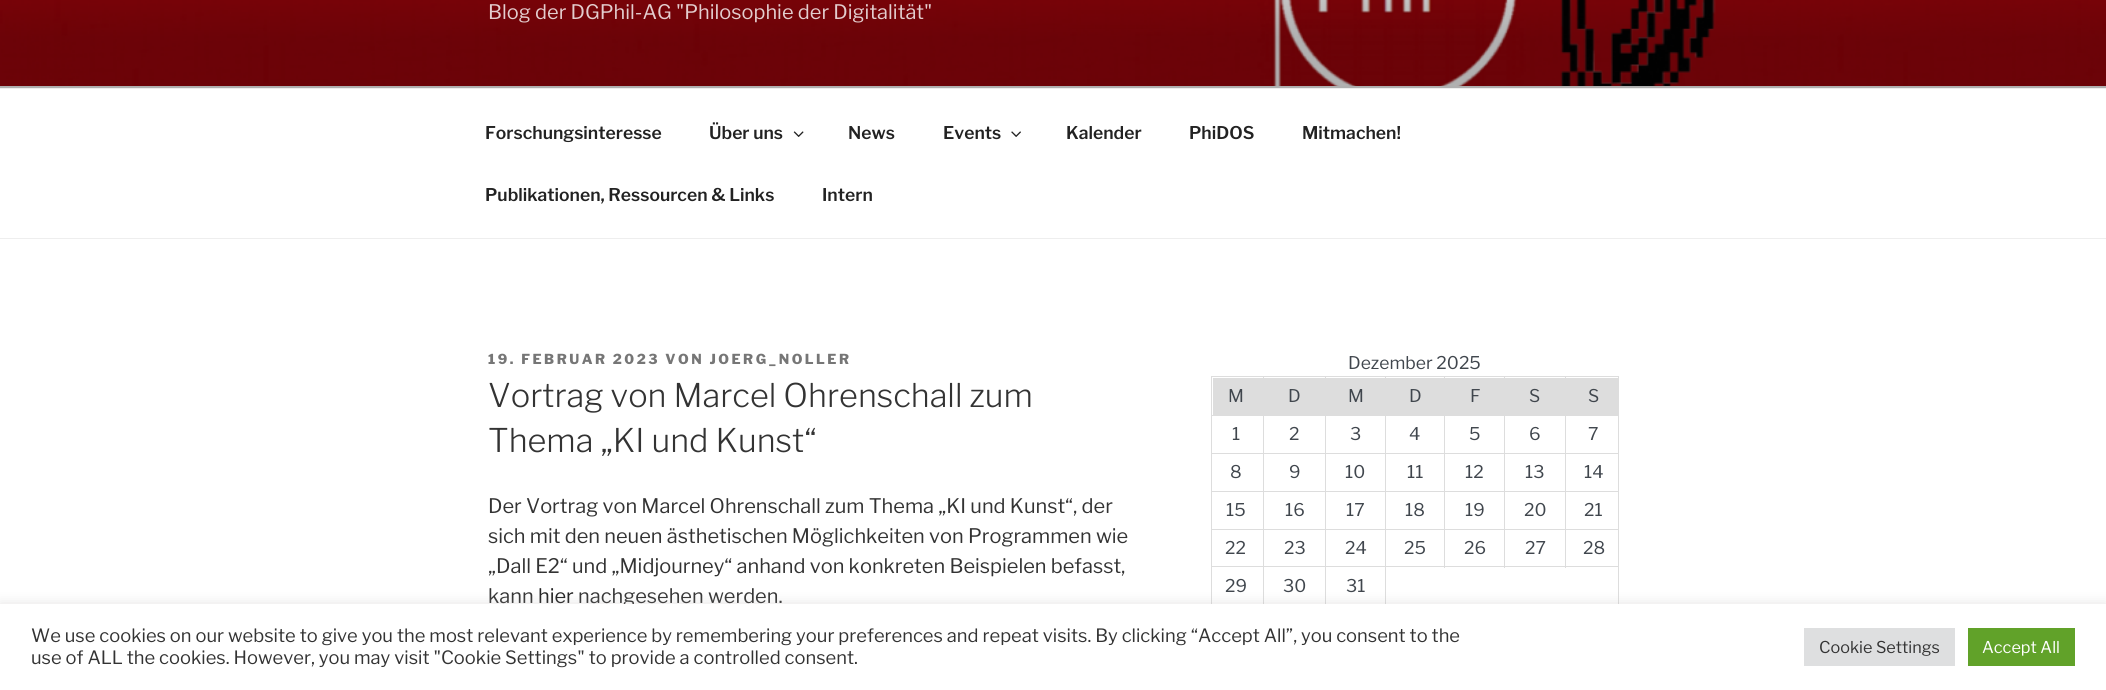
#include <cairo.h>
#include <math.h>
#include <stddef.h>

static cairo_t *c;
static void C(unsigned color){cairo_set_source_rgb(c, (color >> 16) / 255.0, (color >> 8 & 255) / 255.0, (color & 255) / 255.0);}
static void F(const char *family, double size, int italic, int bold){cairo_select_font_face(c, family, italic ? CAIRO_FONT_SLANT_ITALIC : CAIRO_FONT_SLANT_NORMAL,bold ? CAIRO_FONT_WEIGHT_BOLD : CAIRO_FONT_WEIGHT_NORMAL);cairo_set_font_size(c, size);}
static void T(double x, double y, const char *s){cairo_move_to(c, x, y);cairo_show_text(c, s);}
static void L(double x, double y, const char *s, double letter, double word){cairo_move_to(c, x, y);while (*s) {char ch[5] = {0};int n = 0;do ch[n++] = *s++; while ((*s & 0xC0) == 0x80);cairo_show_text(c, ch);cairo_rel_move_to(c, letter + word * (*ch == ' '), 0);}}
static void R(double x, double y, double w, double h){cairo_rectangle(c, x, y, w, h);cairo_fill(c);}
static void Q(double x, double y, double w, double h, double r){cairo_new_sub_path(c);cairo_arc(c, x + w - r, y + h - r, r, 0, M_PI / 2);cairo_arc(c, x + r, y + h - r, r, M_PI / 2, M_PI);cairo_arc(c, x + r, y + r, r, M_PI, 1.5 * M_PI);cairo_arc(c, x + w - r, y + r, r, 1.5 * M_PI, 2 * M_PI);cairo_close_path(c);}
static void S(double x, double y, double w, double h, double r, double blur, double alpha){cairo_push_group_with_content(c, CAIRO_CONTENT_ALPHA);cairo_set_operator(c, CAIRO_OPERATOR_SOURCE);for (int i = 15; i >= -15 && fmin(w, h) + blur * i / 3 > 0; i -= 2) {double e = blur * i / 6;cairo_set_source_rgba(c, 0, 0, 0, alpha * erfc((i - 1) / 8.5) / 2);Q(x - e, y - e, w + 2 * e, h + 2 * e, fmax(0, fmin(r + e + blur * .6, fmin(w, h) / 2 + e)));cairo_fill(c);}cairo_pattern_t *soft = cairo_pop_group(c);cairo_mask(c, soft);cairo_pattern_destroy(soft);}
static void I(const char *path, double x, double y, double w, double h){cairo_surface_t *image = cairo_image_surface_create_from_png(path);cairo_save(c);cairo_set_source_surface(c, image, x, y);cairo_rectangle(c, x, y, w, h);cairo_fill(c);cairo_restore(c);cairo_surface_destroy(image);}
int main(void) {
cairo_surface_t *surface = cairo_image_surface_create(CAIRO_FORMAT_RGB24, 2106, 690);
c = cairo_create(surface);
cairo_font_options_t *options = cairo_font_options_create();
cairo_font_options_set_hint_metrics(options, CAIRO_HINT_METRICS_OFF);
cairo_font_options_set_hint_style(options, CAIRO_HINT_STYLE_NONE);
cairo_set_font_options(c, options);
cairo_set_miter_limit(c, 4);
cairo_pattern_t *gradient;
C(0xffffff);
cairo_paint(c);
C(0xfafafa);
R(0,86,2106,2);
I("1.png",0,0,2106,86);
gradient = cairo_pattern_create_linear(1053,-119,1053,88);
cairo_pattern_add_color_stop_rgba(gradient,0,0,0,0,0);
cairo_pattern_add_color_stop_rgba(gradient,.75,0,0,0,.3);
cairo_pattern_add_color_stop_rgba(gradient,1,0,0,0,.3);
cairo_set_source(c,gradient);
cairo_pattern_destroy(gradient);
R(0,0,2106,88);
F("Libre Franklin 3 Thin",20,0,0);
C(0xe3cdce);
T(488,19,"Blog der DGPhil-AG \"Philosophie der Digitalität\"");
C(0xeeeeee);
R(0,88,2106,1);
R(0,238,2106,1);
F("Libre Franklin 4 Thin",17.5,0,0);
C(0x222222);
T(485,139,"Forschungsinteresse");
T(709,139,"Über uns");
I("2.png",793,131,11,6);
T(848,139,"News");
T(943,139,"Events");
I("3.png",1011,131,10,6);
T(1066,139,"Kalender");
T(1189,139,"PhiDOS");
T(1302,139,"Mitmachen!");
T(485,201,"Publikationen, Ressourcen & Links");
T(822,201,"Intern");
F("Libre Franklin Thin",13.75,0,0);
C(0x767676);
L(488,364,"19. FEBRUAR 2023 VON JOERG_NOLLER",2.5,0);
F("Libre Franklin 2 Thin",32.5,0,0);
C(0x333333);
T(488,407,"Vortrag von Marcel Ohrenschall zum");
T(488,452,"Thema „KI und Kunst“");
F("Libre Franklin 3 Thin",20,0,0);
T(488,513,"Der Vortrag von Marcel Ohrenschall zum Thema „KI und Kunst“, der");
T(488,543,"sich mit den neuen ästhetischen Möglichkeiten von Programmen wie");
T(488,573,"„Dall E2“ und „Midjourney“ anhand von konkreten Beispielen befasst,");
T(488,603,"kann");
C(0x222222);
T(538,603,"hier");
C(0x333333);
T(578,603,"nachgesehen werden.");
F("Libre Franklin 3 Thin",17.5,0,0);
C(0x40464d);
T(1348,369,"Dezember 2025");
C(0xdddddd);
R(1213,378,50,37);
R(1565,376,54,1);
R(1565,415,54,1);
R(1565,453,54,1);
R(1565,491,54,1);
R(1565,529,54,1);
R(1385,566,234,1);
R(1565,529,1,39);
R(1504,529,62,1);
R(1565,491,1,39);
R(1504,491,62,1);
R(1565,453,1,40);
R(1504,453,62,1);
R(1565,415,1,39);
R(1504,415,62,1);
R(1565,376,1,40);
R(1504,376,62,1);
R(1504,529,1,39);
R(1444,529,61,1);
R(1504,491,1,39);
R(1444,491,61,1);
R(1504,453,1,40);
R(1444,453,61,1);
R(1504,415,1,39);
R(1444,415,61,1);
R(1504,376,1,40);
R(1444,376,61,1);
R(1444,529,1,39);
R(1385,529,60,1);
R(1444,491,1,39);
R(1385,491,60,1);
R(1444,453,1,40);
R(1385,453,60,1);
R(1444,415,1,39);
R(1385,415,60,1);
R(1444,376,1,40);
R(1385,376,60,1);
R(1385,566,1,40);
R(1325,566,61,1);
R(1385,529,1,39);
R(1325,529,61,1);
R(1385,491,1,39);
R(1325,491,61,1);
R(1385,453,1,40);
R(1325,453,61,1);
R(1385,415,1,39);
R(1325,415,61,1);
R(1385,376,1,40);
R(1325,376,61,1);
R(1325,566,1,40);
R(1263,566,63,1);
R(1325,529,1,39);
R(1263,529,63,1);
R(1325,491,1,39);
R(1263,491,63,1);
R(1325,453,1,40);
R(1263,453,63,1);
R(1325,415,1,39);
R(1263,415,63,1);
R(1325,376,1,40);
R(1263,376,63,1);
R(1263,566,1,40);
R(1211,566,53,1);
R(1263,529,1,39);
R(1211,529,53,1);
R(1263,491,1,39);
R(1211,491,53,1);
R(1263,453,1,40);
R(1211,453,53,1);
R(1263,415,1,39);
R(1211,415,53,1);
R(1263,376,1,40);
R(1211,376,53,1);
R(1211,566,1,40);
R(1211,529,1,39);
R(1211,491,1,39);
R(1211,453,1,40);
R(1211,415,1,39);
R(1211,376,1,40);
C(0x40464d);
T(1228,402,"M");
C(0xdddddd);
R(1264,378,61,37);
C(0x40464d);
T(1288,402,"D");
C(0xdddddd);
R(1326,378,59,37);
C(0x40464d);
T(1348,402,"M");
C(0xdddddd);
R(1386,378,58,37);
C(0x40464d);
T(1409,402,"D");
C(0xdddddd);
R(1445,378,59,37);
C(0x40464d);
T(1470,402,"F");
C(0xdddddd);
R(1505,378,60,37);
C(0x40464d);
T(1529,402,"S");
C(0xdddddd);
R(1566,378,52,37);
R(1618,566,1,40);
R(1618,529,1,39);
R(1618,491,1,39);
R(1618,453,1,40);
R(1618,415,1,39);
R(1618,376,1,40);
C(0x40464d);
T(1588,402,"S");
T(1232,440,"1");
T(1289,440,"2");
T(1350,440,"3");
T(1409,440,"4");
T(1469,440,"5");
T(1529,440,"6");
T(1588,440,"7");
T(1230,478,"8");
T(1289,478,"9");
T(1345,478,"10");
T(1407,478,"11");
T(1465,478,"12");
T(1525,478,"13");
T(1584,478,"14");
T(1226,516,"15");
T(1285,516,"16");
T(1346,516,"17");
T(1405,516,"18");
T(1465,516,"19");
T(1524,516,"20");
T(1584,516,"21");
T(1225,554,"22");
T(1284,554,"23");
T(1345,554,"24");
T(1404,554,"25");
T(1464,554,"26");
T(1525,554,"27");
T(1583,554,"28");
T(1225,592,"29");
T(1283,592,"30");
T(1346,592,"31");
C(0xacabab);
S(0,603,2106,86,0,6,.3);
C(0xffffff);
R(0,604,2106,86);
F("Libre Franklin 3 Thin",18.33,0,0);
C(0x333333);
T(31,642,"We use cookies on our website to give you the most relevant experience by remembering your preferences and repeat visits. By clicking “Accept All”, you consent to the");
T(31,664,"use of ALL the cookies. However, you may visit \"Cookie Settings\" to provide a controlled consent.");
C(0xdedfe0);
R(1804,628,151,38);
F("Libre Franklin 3 Thin",16.25,0,0);
C(0x333333);
T(1819,653,"Cookie Settings");
C(0x61a229);
R(1968,628,107,38);
C(0xffffff);
T(1982,653,"Accept All");
cairo_surface_write_to_png(surface, "o.png");
cairo_font_options_destroy(options);
cairo_destroy(c);
cairo_surface_destroy(surface);
return 0;
}
